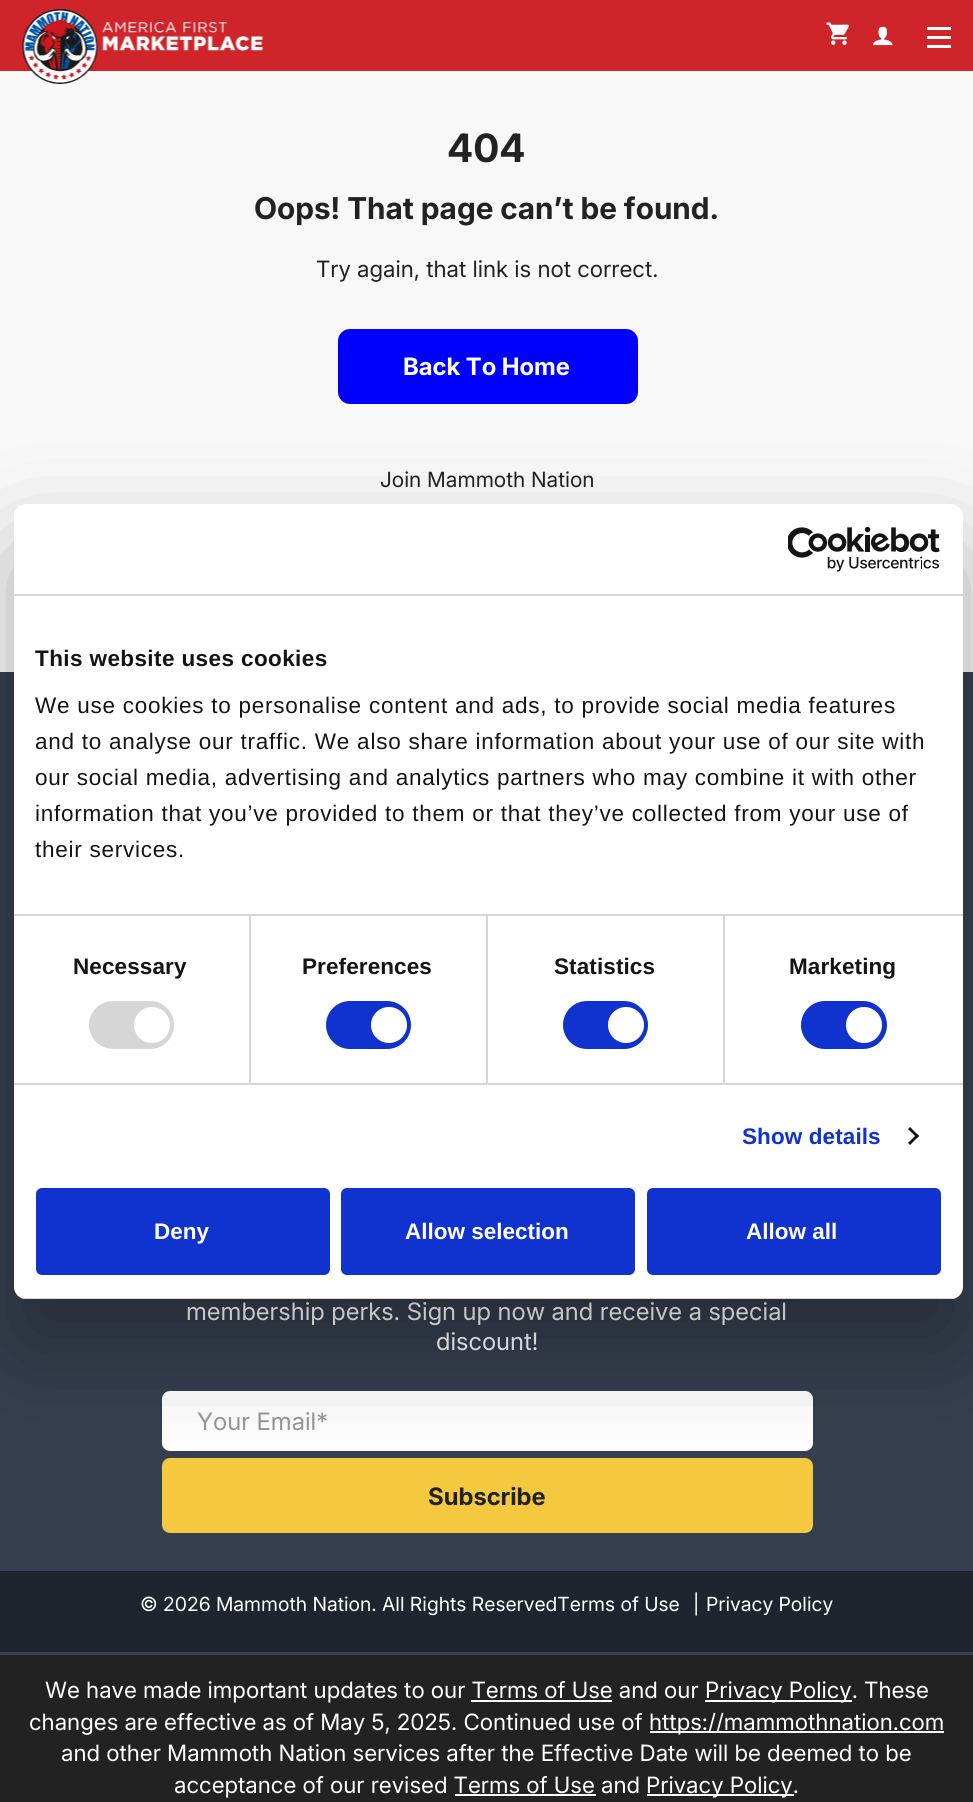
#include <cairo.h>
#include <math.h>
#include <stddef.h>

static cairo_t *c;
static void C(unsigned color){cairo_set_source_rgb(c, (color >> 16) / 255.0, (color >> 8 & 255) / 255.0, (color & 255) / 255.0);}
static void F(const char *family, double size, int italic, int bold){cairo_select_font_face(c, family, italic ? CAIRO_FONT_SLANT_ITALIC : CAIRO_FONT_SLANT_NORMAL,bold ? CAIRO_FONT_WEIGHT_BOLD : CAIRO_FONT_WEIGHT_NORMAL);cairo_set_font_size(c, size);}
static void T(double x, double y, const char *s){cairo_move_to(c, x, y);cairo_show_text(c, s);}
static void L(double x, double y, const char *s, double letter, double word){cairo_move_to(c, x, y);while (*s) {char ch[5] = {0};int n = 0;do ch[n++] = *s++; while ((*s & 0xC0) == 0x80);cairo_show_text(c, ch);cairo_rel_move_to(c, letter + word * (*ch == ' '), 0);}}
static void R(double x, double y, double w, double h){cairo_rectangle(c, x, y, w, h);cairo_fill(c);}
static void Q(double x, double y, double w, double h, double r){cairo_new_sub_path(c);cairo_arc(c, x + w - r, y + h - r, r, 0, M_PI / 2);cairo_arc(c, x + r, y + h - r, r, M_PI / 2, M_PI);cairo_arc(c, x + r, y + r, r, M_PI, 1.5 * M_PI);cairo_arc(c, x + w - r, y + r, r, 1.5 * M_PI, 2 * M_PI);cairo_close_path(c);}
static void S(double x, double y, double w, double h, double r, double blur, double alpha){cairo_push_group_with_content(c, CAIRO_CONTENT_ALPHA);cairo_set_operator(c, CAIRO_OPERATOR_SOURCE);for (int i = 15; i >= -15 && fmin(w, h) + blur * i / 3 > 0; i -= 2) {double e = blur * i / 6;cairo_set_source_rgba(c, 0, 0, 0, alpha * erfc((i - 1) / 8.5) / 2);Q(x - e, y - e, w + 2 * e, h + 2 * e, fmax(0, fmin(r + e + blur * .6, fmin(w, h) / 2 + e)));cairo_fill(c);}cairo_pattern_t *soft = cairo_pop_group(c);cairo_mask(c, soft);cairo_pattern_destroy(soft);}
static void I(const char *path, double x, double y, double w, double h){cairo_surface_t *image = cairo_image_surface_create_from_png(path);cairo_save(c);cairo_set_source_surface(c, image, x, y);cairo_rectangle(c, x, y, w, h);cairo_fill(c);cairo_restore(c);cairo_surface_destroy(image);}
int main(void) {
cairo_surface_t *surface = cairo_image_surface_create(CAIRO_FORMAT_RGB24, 973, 1802);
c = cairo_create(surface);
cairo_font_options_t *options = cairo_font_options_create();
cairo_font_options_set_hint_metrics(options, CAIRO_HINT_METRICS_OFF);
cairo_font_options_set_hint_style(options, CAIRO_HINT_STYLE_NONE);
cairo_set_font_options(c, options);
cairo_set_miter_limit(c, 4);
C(0xf8f8f8);
cairo_paint(c);
C(0xcf242a);
R(0,0,973,71);
I("1.png",22,9,241,75);
I("2.png",826,22,23,23);
I("3.png",873,26,20,20);
C(0xffffff);
R(927,36,24,3);
R(927,27,24,3);
R(927,45,24,3);
F("Inter",39,0,1);
C(0x222222);
T(447,162,"404");
F("Inter",30.1,0,1);
T(254,219,"Oops! That page can’t be found.");
F("Inter",22.5,0,0);
T(316,277,"Try again, that link is not correct.");
C(0x0000ff);
Q(338,329,300,75,12);
cairo_fill(c);
F("Inter",24,0,1);
C(0xffffff);
T(403,375,"Back To Home");
F("Inter",21,0,0);
C(0x222222);
T(380,487,"Join Mammoth Nation");
C(0x363f4f);
R(0,672,973,983);
F("Inter",24,0,0);
C(0xffffff);
T(186,1320,"membership perks. Sign up now and receive a special");
T(436,1350,"discount!");
Q(162,1391,651,60,8);
cairo_fill(c);
C(0x979797);
T(197,1430,"Your Email*");
C(0xf4c93f);
Q(162,1458,651,75,8);
cairo_fill(c);
F("Inter",24,0,1);
C(0x222222);
T(428,1505,"Subscribe");
C(0x1f242e);
R(0,1571,973,81);
F("Inter",19.5,0,0);
C(0xffffff);
T(140,1611,"© 2026 Mammoth Nation. All Rights ReservedTerms of Use");
T(693,1611,"|");
T(706,1611,"Privacy Policy");
C(0x222222);
R(0,1655,973,147);
F("Inter",22.5,0,0);
C(0xffffff);
T(45,1698,"We have made important updates to our Terms of Use and our");
R(705,1700,147,2);
T(705,1698,"Privacy Policy. These");
R(471,1700,141,2);
T(29,1730,"changes are effective as of May 5, 2025. Continued use of");
R(650,1731,294,2);
T(649,1730,"https://mammothnation.com");
T(61,1761,"and other Mammoth Nation services after the Effective Date will be deemed to be");
T(174,1793,"acceptance of our revised Terms of Use and");
R(647,1794,147,2);
T(646,1793,"Privacy Policy.");
R(455,1794,141,2);
C(0x000000);
S(14,552,949,795,12,51,.3);
C(0xffffff);
Q(14,504,949,795,12);
cairo_fill(c);
C(0xd6d6d6);
R(14,594,949,2);
I("4.png",788,527,152,45);
R(249,915,2,168);
R(486,915,2,168);
R(723,915,2,168);
R(14,914,949,2);
F("Liberation Sans",22.5,0,1);
C(0x141414);
L(35,666,"This website uses cookies",.4,0);
F("Liberation Sans",22.5,0,0);
L(35,713,"We use cookies to personalise content and ads, to provide social media features",.75,0);
L(35,749,"and to analyse our traffic. We also share information about your use of our site with",.75,0);
L(35,785,"our social media, advertising and analytics partners who may combine it with other",.75,0);
L(35,821,"information that you’ve provided to them or that they’ve collected from your use of",.75,0);
L(35,857,"their services.",.75,0);
C(0xd6d6d6);
R(14,1083,949,2);
F("Liberation Sans",22.5,0,1);
C(0x141414);
L(73,974,"Necessary",.1,0);
C(0xd6d6d6);
Q(89,1001,85,48,24);
cairo_fill(c);
C(0xffffff);
cairo_arc(c,152,1025,18,0,2 * M_PI);
cairo_fill(c);
C(0x141414);
L(302,974,"Preferences",.1,0);
C(0x1032cf);
Q(326,1001,85,48,24);
cairo_fill(c);
C(0xffffff);
cairo_arc(c,389,1025,18,0,2 * M_PI);
cairo_fill(c);
C(0x141414);
L(554,974,"Statistics",.1,0);
C(0x1032cf);
Q(563,1001,85,48,24);
cairo_fill(c);
C(0xffffff);
cairo_arc(c,626,1025,18,0,2 * M_PI);
cairo_fill(c);
C(0x141414);
L(789,974,"Marketing",.1,0);
C(0x1032cf);
Q(801,1001,86,48,24);
cairo_fill(c);
C(0xffffff);
cairo_arc(c,864,1025,18,0,2 * M_PI);
cairo_fill(c);
C(0x1032cf);
L(742,1144,"Show details",.1,0);
C(0x141414);
cairo_new_path(c);
cairo_move_to(c,910,1127);
cairo_line_to(c,919,1136);
cairo_line_to(c,917,1138);
cairo_line_to(c,908,1129);
cairo_close_path(c);
cairo_fill(c);
cairo_new_path(c);
cairo_move_to(c,917,1134);
cairo_line_to(c,919,1136);
cairo_line_to(c,910,1145);
cairo_line_to(c,908,1143);
cairo_close_path(c);
cairo_fill(c);
cairo_save(c);
Q(14,504,949,795,12);
cairo_clip(c);
C(0xd6d6d6);
R(14,1298,949,1);
cairo_restore(c);
C(0x1032cf);
Q(37.5,1189.5,291,84,4.5);
cairo_fill_preserve(c);
cairo_set_line_width(c,3);
cairo_stroke(c);
C(0xffffff);
T(154,1239,"Deny");
C(0x1032cf);
Q(342.5,1189.5,291,84,4.5);
cairo_fill_preserve(c);
cairo_stroke(c);
C(0xffffff);
T(405,1239,"Allow selection");
C(0x1032cf);
Q(648.5,1189.5,291,84,4.5);
cairo_fill_preserve(c);
cairo_stroke(c);
C(0xffffff);
T(746,1239,"Allow all");
cairo_surface_write_to_png(surface, "o.png");
cairo_font_options_destroy(options);
cairo_destroy(c);
cairo_surface_destroy(surface);
return 0;
}
